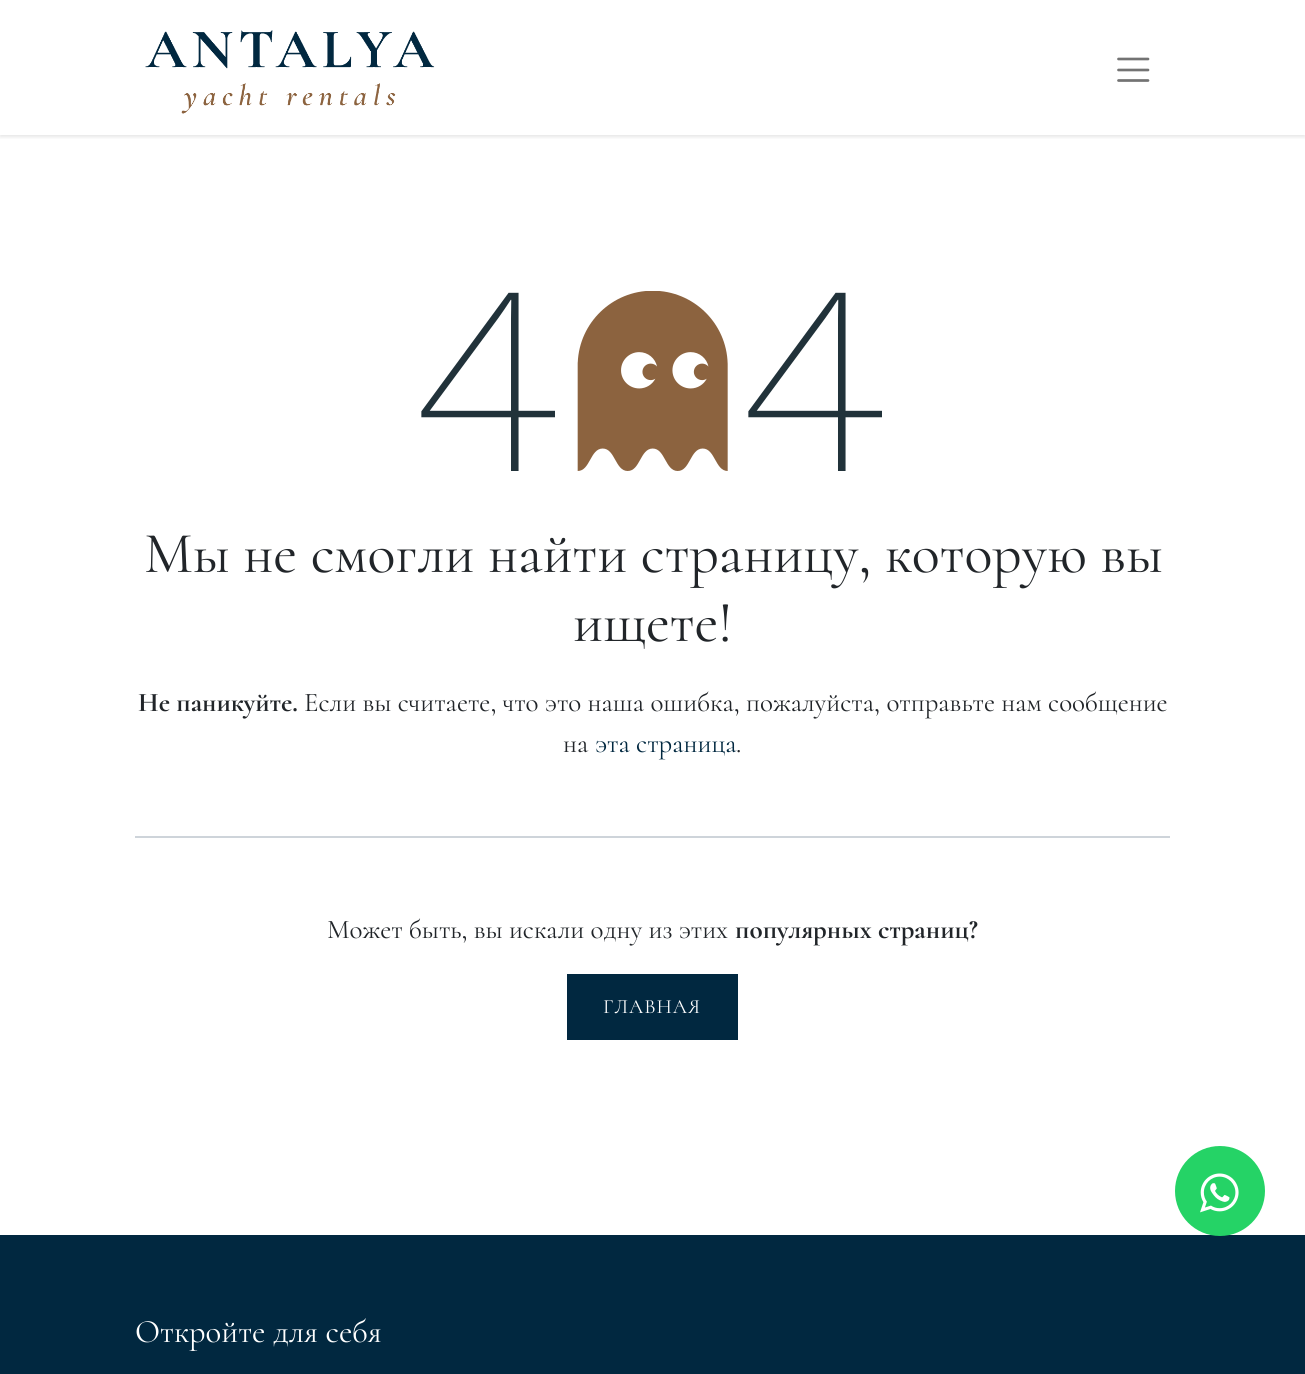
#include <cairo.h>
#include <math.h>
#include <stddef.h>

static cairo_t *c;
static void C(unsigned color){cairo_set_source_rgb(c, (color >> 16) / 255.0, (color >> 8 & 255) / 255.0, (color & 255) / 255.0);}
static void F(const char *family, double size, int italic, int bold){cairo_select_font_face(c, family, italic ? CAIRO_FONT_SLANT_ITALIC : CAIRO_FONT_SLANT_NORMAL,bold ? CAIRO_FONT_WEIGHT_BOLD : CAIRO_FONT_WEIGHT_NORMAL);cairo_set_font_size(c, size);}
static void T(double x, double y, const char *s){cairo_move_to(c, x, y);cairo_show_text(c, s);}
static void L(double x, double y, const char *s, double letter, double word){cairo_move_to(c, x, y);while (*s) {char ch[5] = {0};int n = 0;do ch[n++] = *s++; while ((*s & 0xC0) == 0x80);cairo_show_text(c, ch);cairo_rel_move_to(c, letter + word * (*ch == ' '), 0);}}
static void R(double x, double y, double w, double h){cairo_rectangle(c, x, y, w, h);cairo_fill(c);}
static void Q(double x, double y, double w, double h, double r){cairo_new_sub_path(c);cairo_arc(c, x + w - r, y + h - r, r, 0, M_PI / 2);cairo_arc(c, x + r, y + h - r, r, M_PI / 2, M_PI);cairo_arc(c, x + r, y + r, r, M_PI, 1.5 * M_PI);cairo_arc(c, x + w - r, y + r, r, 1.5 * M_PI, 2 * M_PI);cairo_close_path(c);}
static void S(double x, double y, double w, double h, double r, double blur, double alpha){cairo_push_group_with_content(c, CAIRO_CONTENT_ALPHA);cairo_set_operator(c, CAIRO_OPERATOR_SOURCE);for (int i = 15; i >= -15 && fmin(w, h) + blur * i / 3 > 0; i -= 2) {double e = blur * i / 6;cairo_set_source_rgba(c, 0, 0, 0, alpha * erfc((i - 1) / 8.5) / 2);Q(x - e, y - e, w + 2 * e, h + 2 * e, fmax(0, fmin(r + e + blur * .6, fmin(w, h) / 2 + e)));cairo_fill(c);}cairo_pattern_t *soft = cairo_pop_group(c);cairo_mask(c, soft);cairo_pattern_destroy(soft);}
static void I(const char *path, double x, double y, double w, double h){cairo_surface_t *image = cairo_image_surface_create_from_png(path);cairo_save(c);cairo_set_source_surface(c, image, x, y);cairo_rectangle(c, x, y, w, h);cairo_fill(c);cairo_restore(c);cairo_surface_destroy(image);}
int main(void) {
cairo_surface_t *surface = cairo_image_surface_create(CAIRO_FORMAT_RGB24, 1305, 1374);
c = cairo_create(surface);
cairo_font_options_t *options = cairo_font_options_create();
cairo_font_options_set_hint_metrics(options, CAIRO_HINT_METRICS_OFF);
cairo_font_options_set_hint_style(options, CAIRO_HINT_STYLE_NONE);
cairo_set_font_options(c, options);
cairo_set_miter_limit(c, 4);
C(0xffffff);
cairo_paint(c);
cairo_save(c);
cairo_rectangle(c,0,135,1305,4);
cairo_clip(c);
C(0x000000);
S(0,2,1305,135,0,2,.1);
cairo_restore(c);
I("1.png",145,30,290,84);
cairo_new_path(c);
cairo_move_to(c,1118.5,59);
cairo_line_to(c,1148,59);
cairo_move_to(c,1118.5,70);
cairo_line_to(c,1148,70);
cairo_move_to(c,1118.5,80.5);
cairo_line_to(c,1148,80.5);
C(0x737373);
cairo_set_line_width(c,2.7);
cairo_set_line_cap(c,CAIRO_LINE_CAP_ROUND);
cairo_stroke(c);
I("2.png",421,291,461,180);
F("Cormorant",58.25,0,0);
C(0x212529);
T(144,572,"Мы не смогли найти страницу, которую вы");
T(573,641,"ищете!");
F("Cormorant",27,0,1);
T(138,711,"Не паникуйте.");
F("Cormorant",27,0,0);
T(304,711,"Если вы считаете, что это наша ошибка, пожалуйста, отправьте нам сообщение");
T(563,752,"на");
C(0x012840);
T(595,752,"эта страница");
C(0x212529);
T(736,752,".");
C(0xced4da);
R(135,836,1035,2);
C(0x212529);
T(327,938,"Может быть, вы искали одну из этих");
F("Cormorant",27,0,1);
T(735,938,"популярных страниц?");
C(0x012840);
R(567,974,171,66);
F("Cormorant",20.25,0,0);
C(0xffffff);
L(603,1013,"ГЛАВНАЯ",1,0);
C(0x012840);
R(0,1235,1305,139);
C(0x25d366);
cairo_new_path(c);
cairo_arc(c,1220,1191,45,0,2 * M_PI);
cairo_fill(c);
I("3.png",1200,1173,39,40);
F("Cormorant",32.75,0,0);
C(0xffffff);
T(135,1342,"Откройте для себя");
cairo_surface_write_to_png(surface, "o.png");
cairo_font_options_destroy(options);
cairo_destroy(c);
cairo_surface_destroy(surface);
return 0;
}
